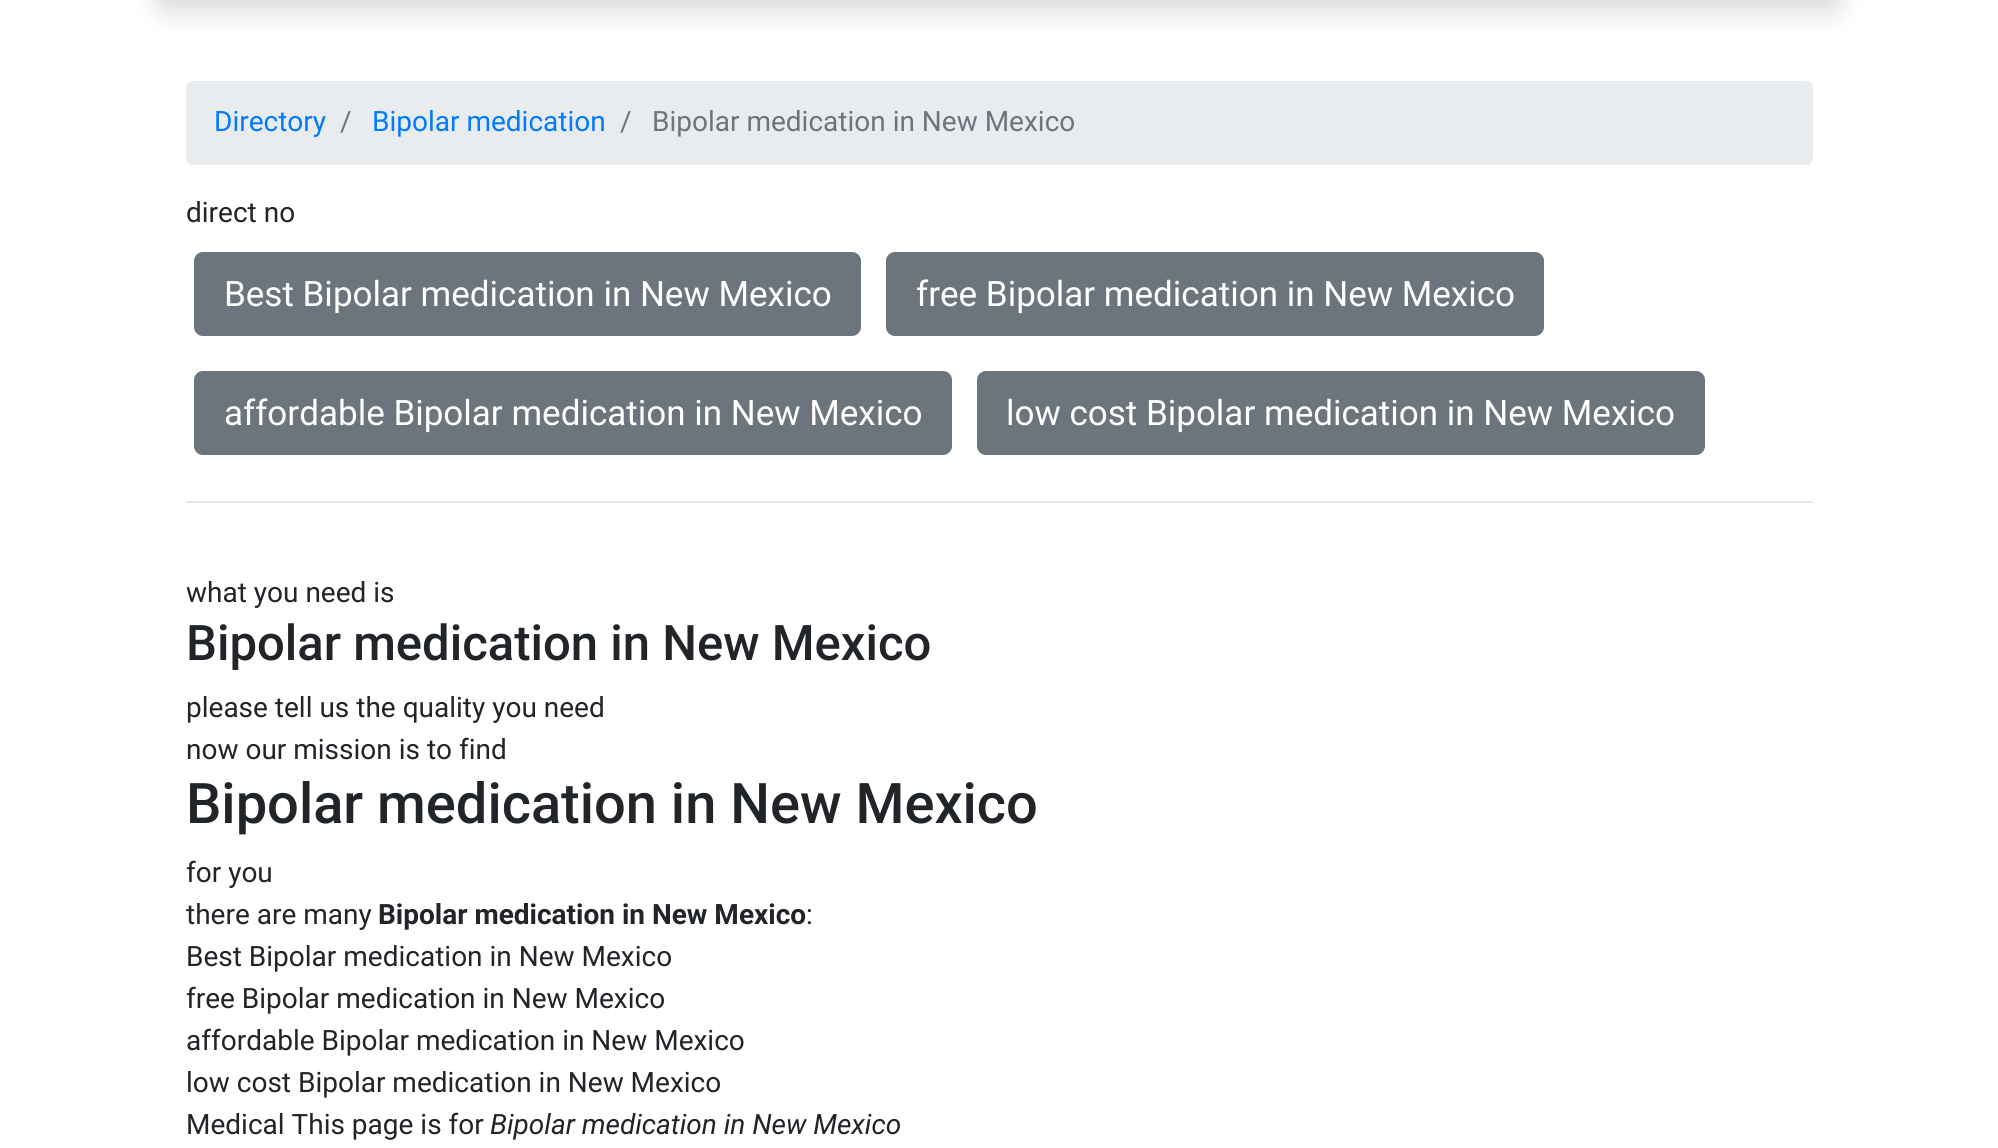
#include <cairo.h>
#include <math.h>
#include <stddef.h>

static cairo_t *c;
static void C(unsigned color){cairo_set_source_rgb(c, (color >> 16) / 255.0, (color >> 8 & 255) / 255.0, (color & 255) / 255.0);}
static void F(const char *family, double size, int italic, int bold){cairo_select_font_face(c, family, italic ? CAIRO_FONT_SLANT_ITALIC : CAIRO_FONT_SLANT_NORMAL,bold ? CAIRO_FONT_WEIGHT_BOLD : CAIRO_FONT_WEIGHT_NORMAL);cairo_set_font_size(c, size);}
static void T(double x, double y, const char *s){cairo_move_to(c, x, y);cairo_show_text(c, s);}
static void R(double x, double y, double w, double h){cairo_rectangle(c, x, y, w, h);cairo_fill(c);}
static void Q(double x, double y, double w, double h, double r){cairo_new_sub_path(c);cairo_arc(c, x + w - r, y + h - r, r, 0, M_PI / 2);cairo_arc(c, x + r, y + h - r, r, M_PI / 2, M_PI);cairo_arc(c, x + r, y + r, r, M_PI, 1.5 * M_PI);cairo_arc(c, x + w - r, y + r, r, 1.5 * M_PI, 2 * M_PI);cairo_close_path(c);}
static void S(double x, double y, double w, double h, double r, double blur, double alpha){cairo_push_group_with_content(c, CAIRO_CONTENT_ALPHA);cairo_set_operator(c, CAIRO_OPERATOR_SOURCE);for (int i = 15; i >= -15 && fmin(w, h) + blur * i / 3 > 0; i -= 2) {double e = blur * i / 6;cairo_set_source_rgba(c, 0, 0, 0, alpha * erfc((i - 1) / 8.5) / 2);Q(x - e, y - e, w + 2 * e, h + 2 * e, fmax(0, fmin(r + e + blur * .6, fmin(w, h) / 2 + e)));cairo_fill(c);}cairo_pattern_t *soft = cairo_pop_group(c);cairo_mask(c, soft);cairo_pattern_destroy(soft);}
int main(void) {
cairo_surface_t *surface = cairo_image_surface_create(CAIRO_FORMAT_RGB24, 1998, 1148);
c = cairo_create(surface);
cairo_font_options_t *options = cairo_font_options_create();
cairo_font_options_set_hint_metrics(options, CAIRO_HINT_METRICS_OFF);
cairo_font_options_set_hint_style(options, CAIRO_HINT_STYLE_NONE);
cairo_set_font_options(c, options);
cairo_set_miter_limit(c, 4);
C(0xffffff);
cairo_paint(c);
C(0x000000);
S(159,-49,1680,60,7,14,.15);
C(0xe9ecef);
Q(186,81,1627,84,7);
cairo_fill(c);
F("Roboto",28,0,0);
C(0x007bff);
T(214,131,"Directory");
C(0x6c757d);
T(340,131,"/");
C(0x007bff);
T(372,131,"Bipolar medication");
C(0x6c757d);
T(620,131,"/");
T(652,131,"Bipolar medication in New Mexico");
C(0x212529);
T(186,222,"direct no");
C(0x6c757d);
Q(195,253,665,82,8);
cairo_fill_preserve(c);
cairo_stroke(c);
F("Roboto",35,0,0);
C(0xffffff);
T(224,306,"Best Bipolar medication in New Mexico");
C(0x6c757d);
Q(887,253,656,82,8);
cairo_fill_preserve(c);
cairo_stroke(c);
C(0xffffff);
T(916,306,"free Bipolar medication in New Mexico");
C(0x6c757d);
Q(195,372,756,82,8);
cairo_fill_preserve(c);
cairo_stroke(c);
C(0xffffff);
T(224,425,"affordable Bipolar medication in New Mexico");
C(0x6c757d);
Q(978,372,726,82,8);
cairo_fill_preserve(c);
cairo_stroke(c);
C(0xffffff);
T(1006,425,"low cost Bipolar medication in New Mexico");
C(0xe6e6e6);
R(186,501,1627,2);
F("Roboto",28,0,0);
C(0x212529);
T(186,602,"what you need is");
F("Roboto Medium",49,0,0);
T(186,660,"Bipolar medication in New Mexico");
F("Roboto",28,0,0);
T(186,717,"please tell us the quality you need");
T(186,759,"now our mission is to find");
F("Roboto Medium",56,0,0);
T(186,823,"Bipolar medication in New Mexico");
F("Roboto",28,0,0);
T(186,882,"for you");
T(186,924,"there are many");
F("Roboto",28,0,1);
T(378,924,"Bipolar medication in New Mexico");
F("Roboto",28,0,0);
T(806,924,":");
T(186,966,"Best Bipolar medication in New Mexico");
T(186,1008,"free Bipolar medication in New Mexico");
T(186,1050,"affordable Bipolar medication in New Mexico");
T(186,1092,"low cost Bipolar medication in New Mexico");
T(186,1134,"Medical This page is for");
F("Roboto",28,1,0);
T(490,1134,"Bipolar medication in New Mexico");
cairo_surface_write_to_png(surface, "o.png");
cairo_font_options_destroy(options);
cairo_destroy(c);
cairo_surface_destroy(surface);
return 0;
}
